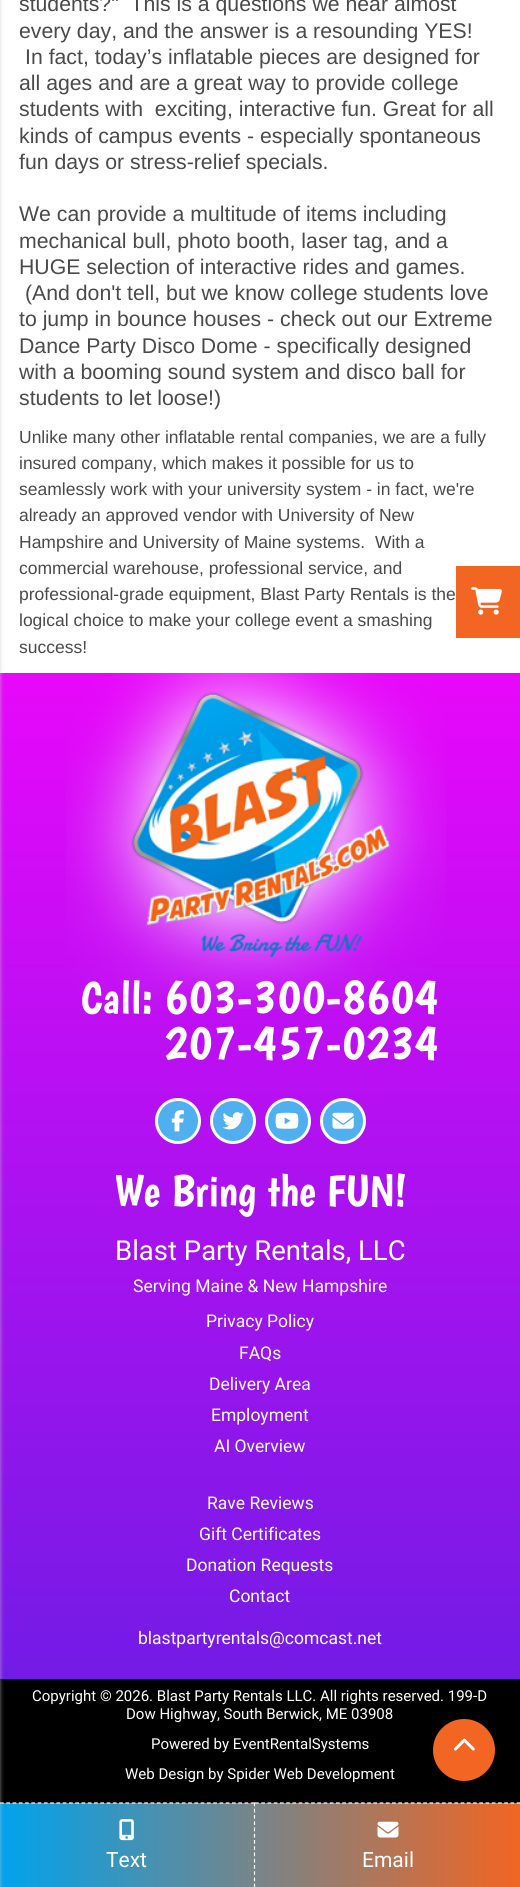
#include <cairo.h>
#include <math.h>
#include <stddef.h>

static cairo_t *c;
static void C(unsigned color){cairo_set_source_rgb(c, (color >> 16) / 255.0, (color >> 8 & 255) / 255.0, (color & 255) / 255.0);}
static void F(const char *family, double size, int italic, int bold){cairo_select_font_face(c, family, italic ? CAIRO_FONT_SLANT_ITALIC : CAIRO_FONT_SLANT_NORMAL,bold ? CAIRO_FONT_WEIGHT_BOLD : CAIRO_FONT_WEIGHT_NORMAL);cairo_set_font_size(c, size);}
static void T(double x, double y, const char *s){cairo_move_to(c, x, y);cairo_show_text(c, s);}
static void R(double x, double y, double w, double h){cairo_rectangle(c, x, y, w, h);cairo_fill(c);}
static void Q(double x, double y, double w, double h, double r){cairo_new_sub_path(c);cairo_arc(c, x + w - r, y + h - r, r, 0, M_PI / 2);cairo_arc(c, x + r, y + h - r, r, M_PI / 2, M_PI);cairo_arc(c, x + r, y + r, r, M_PI, 1.5 * M_PI);cairo_arc(c, x + w - r, y + r, r, 1.5 * M_PI, 2 * M_PI);cairo_close_path(c);}
static void S(double x, double y, double w, double h, double r, double blur, double alpha){cairo_push_group_with_content(c, CAIRO_CONTENT_ALPHA);cairo_set_operator(c, CAIRO_OPERATOR_SOURCE);for (int i = 15; i >= -15 && fmin(w, h) + blur * i / 3 > 0; i -= 2) {double e = blur * i / 6;cairo_set_source_rgba(c, 0, 0, 0, alpha * erfc((i - 1) / 8.5) / 2);Q(x - e, y - e, w + 2 * e, h + 2 * e, fmax(0, fmin(r + e + blur * .6, fmin(w, h) / 2 + e)));cairo_fill(c);}cairo_pattern_t *soft = cairo_pop_group(c);cairo_mask(c, soft);cairo_pattern_destroy(soft);}
static void I(const char *path, double x, double y, double w, double h){cairo_surface_t *image = cairo_image_surface_create_from_png(path);cairo_save(c);cairo_set_source_surface(c, image, x, y);cairo_rectangle(c, x, y, w, h);cairo_fill(c);cairo_restore(c);cairo_surface_destroy(image);}
int main(void) {
cairo_surface_t *surface = cairo_image_surface_create(CAIRO_FORMAT_RGB24, 520, 1887);
c = cairo_create(surface);
cairo_font_options_t *options = cairo_font_options_create();
cairo_font_options_set_hint_metrics(options, CAIRO_HINT_METRICS_OFF);
cairo_font_options_set_hint_style(options, CAIRO_HINT_STYLE_NONE);
cairo_set_font_options(c, options);
cairo_set_miter_limit(c, 4);
cairo_pattern_t *gradient;
C(0xffffff);
cairo_paint(c);
gradient = cairo_pattern_create_linear(260,1679,260,673);
cairo_pattern_add_color_stop_rgba(gradient,0,0.451,0.106,0.902,1);
cairo_pattern_add_color_stop_rgba(gradient,1,0.906,0.031,0.98,1);
cairo_set_source(c,gradient);
cairo_pattern_destroy(gradient);
R(0,673,520,1006);
C(0x000000);
R(0,1679,520,124);
gradient = cairo_pattern_create_linear(0,1845,520,1845);
cairo_pattern_add_color_stop_rgba(gradient,0,0,0.639,0.929,1);
cairo_pattern_add_color_stop_rgba(gradient,1,0.949,0.396,0.133,1);
cairo_set_source(c,gradient);
cairo_pattern_destroy(gradient);
R(0,1803,520,84);
cairo_new_path(c);
cairo_move_to(c,0,1803);
cairo_line_to(c,255,1803);
C(0xffffff);
cairo_set_line_width(c,1.2);
cairo_set_dash(c,(double[]){3.75,2.52},2,0);
cairo_stroke(c);
C(0xc7c7c7);
S(-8,0,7,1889,0,2.5,1);
F("Liberation Sans",21.25,0,0);
C(0x4a4a4a);
T(19,11,"students?\"  This is a questions we hear almost");
T(19,38,"every day, and the answer is a resounding YES!");
T(25,64,"In fact, today’s inflatable pieces are designed for");
T(19,90,"all ages and are a great way to provide college");
T(19,116,"students with  exciting, interactive fun. Great for all");
T(19,143,"kinds of campus events - especially spontaneous");
T(19,169,"fun days or stress-relief specials.");
T(19,221,"We can provide a multitude of items including");
T(19,248,"mechanical bull, photo booth, laser tag, and a");
T(19,274,"HUGE selection of interactive rides and games.");
T(25,300,"(And don't tell, but we know college students love");
T(19,326,"to jump in bounce houses - check out our Extreme");
T(19,353,"Dance Party Disco Dome - specifically designed");
T(19,379,"with a booming sound system and disco ball for");
T(19,405,"students to let loose!)");
F("Liberation Sans",17.5,0,0);
T(19,443,"Unlike many other inflatable rental companies, we are a fully");
T(19,469,"insured company, which makes it possible for us to");
T(19,495,"seamlessly work with your university system - in fact, we're");
T(19,521,"already an approved vendor with University of New");
T(19,548,"Hampshire and University of Maine systems.  With a");
T(19,574,"commercial warehouse, professional service, and");
T(19,600,"professional-grade equipment, Blast Party Rentals is the");
T(19,626,"logical choice to make your college event a smashing");
T(19,653,"success!");
I("1.png",66,673,380,336);
F("Boogaloo",45,0,0);
C(0xffffff);
T(81,1013,"Call:");
F("Boogaloo",50,0,0);
T(164,1013,"603-300-8604");
T(164,1059,"207-457-0234");
C(0x50afef);
cairo_new_path(c);
cairo_arc(c,178,1121,21.5,0,2 * M_PI);
cairo_fill_preserve(c);
C(0xffffff);
cairo_set_line_width(c,3);
cairo_set_dash(c,NULL,0,0);
cairo_stroke(c);
I("2.png",171,1110,13,22);
C(0x50afef);
cairo_arc(c,233,1121,21.5,0,2 * M_PI);
cairo_fill_preserve(c);
C(0xffffff);
cairo_stroke(c);
I("3.png",222,1112,22,18);
C(0x50afef);
cairo_arc(c,288,1121,21.5,0,2 * M_PI);
cairo_fill_preserve(c);
C(0xffffff);
cairo_stroke(c);
I("4.png",275,1112,24,17);
C(0x50afef);
cairo_arc(c,343,1121,21.5,0,2 * M_PI);
cairo_fill_preserve(c);
C(0xffffff);
cairo_stroke(c);
I("5.png",332,1112,22,17);
F("Boogaloo",45,0,0);
T(114,1206,"We Bring the FUN!");
F("Roboto",27.5,0,0);
T(115,1260,"Blast Party Rentals, LLC");
F("Roboto",17.5,0,0);
T(133,1292,"Serving Maine & New Hampshire");
T(206,1327,"Privacy Policy");
T(239,1359,"FAQs");
T(209,1390,"Delivery Area");
T(211,1421,"Employment");
T(214,1452,"AI Overview");
T(207,1509,"Rave Reviews");
T(199,1540,"Gift Certificates");
T(186,1571,"Donation Requests");
T(229,1602,"Contact");
T(138,1644,"blastpartyrentals@comcast.net");
F("Roboto",15,0,0);
T(32,1701,"Copyright © 2026. Blast Party Rentals LLC. All rights reserved. 199-D");
T(126,1719,"Dow Highway, South Berwick, ME 03908");
T(151,1749,"Powered by EventRentalSystems");
T(125,1779,"Web Design by Spider Web Development");
C(0xf26522);
cairo_new_path(c);
cairo_arc(c,464,1750,31,0,2 * M_PI);
cairo_fill(c);
I("6.png",454,1738,21,13);
R(456,566,64,72);
I("7.png",471,587,31,28);
cairo_new_path(c);
cairo_move_to(c,254.5,1802.5);
cairo_line_to(c,254.5,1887.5);
C(0xffffff);
cairo_set_line_width(c,1.2);
cairo_set_dash(c,(double[]){3.75,2.5},2,0);
cairo_stroke(c);
I("8.png",119,1819,15,22);
F("Roboto",21,0,0);
T(106,1867,"Text");
cairo_new_path(c);
cairo_move_to(c,255,1803);
cairo_line_to(c,520,1803);
cairo_set_dash(c,(double[]){3.75,2.48},2,0);
cairo_stroke(c);
I("9.png",377,1821,22,17);
T(362,1867,"Email");
cairo_surface_write_to_png(surface, "o.png");
cairo_font_options_destroy(options);
cairo_destroy(c);
cairo_surface_destroy(surface);
return 0;
}
